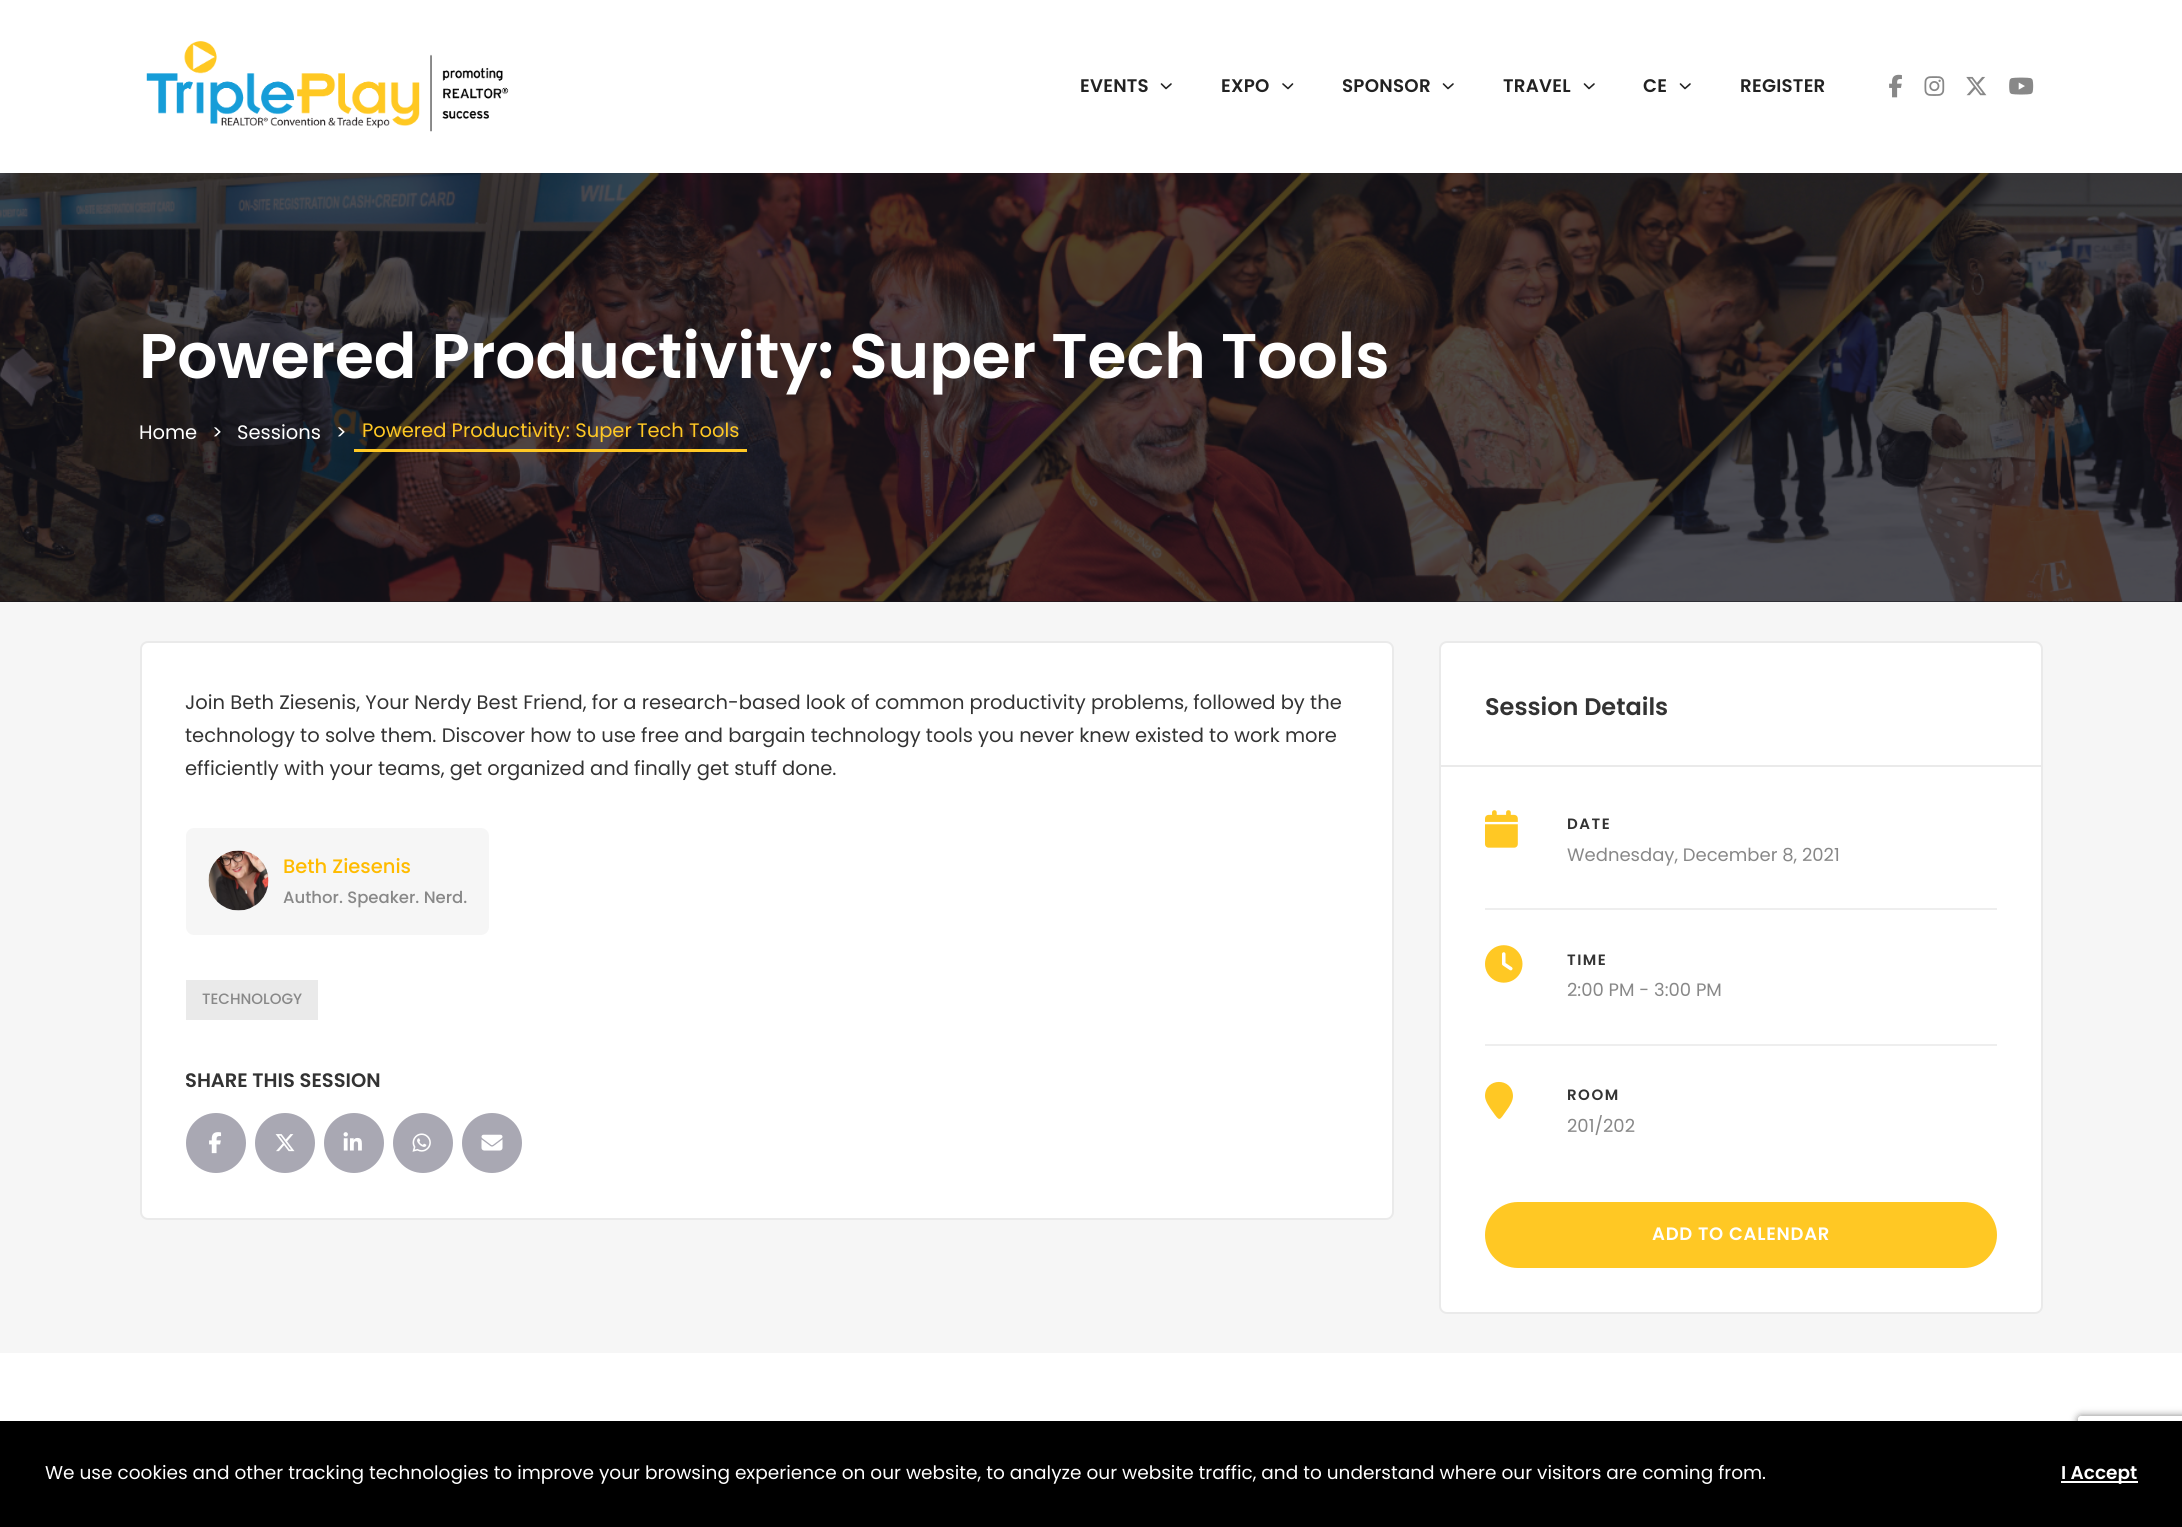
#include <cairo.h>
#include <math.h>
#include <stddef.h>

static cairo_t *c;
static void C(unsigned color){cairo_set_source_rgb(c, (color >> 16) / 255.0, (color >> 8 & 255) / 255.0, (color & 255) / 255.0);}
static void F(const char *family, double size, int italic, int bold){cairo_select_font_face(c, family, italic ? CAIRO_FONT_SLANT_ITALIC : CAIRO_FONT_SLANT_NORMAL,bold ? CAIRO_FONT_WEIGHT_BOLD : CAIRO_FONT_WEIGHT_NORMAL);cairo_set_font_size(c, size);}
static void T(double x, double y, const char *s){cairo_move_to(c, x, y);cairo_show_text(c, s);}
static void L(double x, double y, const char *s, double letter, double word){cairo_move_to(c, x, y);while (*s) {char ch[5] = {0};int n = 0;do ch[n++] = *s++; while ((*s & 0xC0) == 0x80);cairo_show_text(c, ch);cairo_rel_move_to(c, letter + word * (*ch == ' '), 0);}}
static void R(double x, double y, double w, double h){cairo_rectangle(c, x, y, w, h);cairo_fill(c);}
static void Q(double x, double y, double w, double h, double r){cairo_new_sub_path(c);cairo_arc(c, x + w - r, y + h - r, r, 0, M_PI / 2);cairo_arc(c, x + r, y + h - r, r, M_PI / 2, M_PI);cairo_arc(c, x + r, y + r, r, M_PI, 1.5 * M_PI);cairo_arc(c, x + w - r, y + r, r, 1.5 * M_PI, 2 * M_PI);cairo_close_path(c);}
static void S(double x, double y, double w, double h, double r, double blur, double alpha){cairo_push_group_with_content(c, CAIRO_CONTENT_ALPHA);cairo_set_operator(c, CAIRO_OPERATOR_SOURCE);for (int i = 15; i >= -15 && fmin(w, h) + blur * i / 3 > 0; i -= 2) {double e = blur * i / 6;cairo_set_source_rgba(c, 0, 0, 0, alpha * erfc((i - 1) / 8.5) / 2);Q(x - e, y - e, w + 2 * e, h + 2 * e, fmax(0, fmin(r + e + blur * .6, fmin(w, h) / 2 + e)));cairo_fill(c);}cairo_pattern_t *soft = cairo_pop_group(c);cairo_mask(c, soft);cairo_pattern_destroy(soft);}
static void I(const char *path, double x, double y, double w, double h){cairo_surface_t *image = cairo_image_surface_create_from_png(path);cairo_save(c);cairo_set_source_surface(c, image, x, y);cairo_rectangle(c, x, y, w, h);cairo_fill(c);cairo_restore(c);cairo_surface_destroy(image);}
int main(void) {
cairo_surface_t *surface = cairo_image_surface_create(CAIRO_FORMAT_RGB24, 2182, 1527);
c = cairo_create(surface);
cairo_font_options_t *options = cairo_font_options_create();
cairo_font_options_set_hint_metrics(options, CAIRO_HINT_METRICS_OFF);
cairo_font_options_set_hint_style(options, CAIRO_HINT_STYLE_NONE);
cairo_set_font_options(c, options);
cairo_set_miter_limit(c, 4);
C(0xffffff);
cairo_paint(c);
C(0xf6f6f6);
R(0,602,2182,751);
I("1.png",146,41,363,91);
F("Poppins SemiBold",18.25,0,0);
C(0x222222);
L(1080,92,"EVENTS",.25,0);
cairo_new_path(c);
cairo_move_to(c,1161.5,84);
cairo_line_to(c,1166,88.5);
cairo_line_to(c,1171,84);
cairo_set_line_width(c,1.6);
cairo_set_line_cap(c,CAIRO_LINE_CAP_ROUND);
cairo_set_line_join(c,CAIRO_LINE_JOIN_ROUND);
cairo_stroke(c);
L(1221,92,"EXPO",.25,0);
cairo_new_path(c);
cairo_move_to(c,1283,84);
cairo_line_to(c,1288,88.5);
cairo_line_to(c,1292.5,84);
cairo_stroke(c);
L(1342,92,"SPONSOR",.25,0);
cairo_new_path(c);
cairo_move_to(c,1443.5,84);
cairo_line_to(c,1448,88.5);
cairo_line_to(c,1453,84);
cairo_stroke(c);
L(1503,92,"TRAVEL",.25,0);
cairo_new_path(c);
cairo_move_to(c,1584.5,84);
cairo_line_to(c,1589,88.5);
cairo_line_to(c,1594,84);
cairo_stroke(c);
L(1643,92,"CE",.25,0);
cairo_new_path(c);
cairo_move_to(c,1680.5,84);
cairo_line_to(c,1685,88.5);
cairo_line_to(c,1690,84);
cairo_stroke(c);
L(1740,92,"REGISTER",.25,0);
I("2.png",1889,74,13,24);
I("3.png",1924,76,21,20);
I("4.png",1966,76,21,20);
I("5.png",2009,77,25,18);
C(0x121219);
R(0,173,2182,429);
I("6.png",0,173,2182,429);
F("Poppins SemiBold",63,0,0);
C(0xffffff);
T(139,378,"Powered Productivity: Super Tech Tools");
F("Poppins",19.5,0,0);
T(139,439,"Home");
T(212,439,">");
T(237,439,"Sessions");
T(336,439,">");
C(0xffc824);
R(354,449,393,3);
T(362,437,"Powered Productivity: Super Tech Tools");
C(0xffffff);
Q(141,642,1252,577,7);
cairo_fill_preserve(c);
C(0xeaeaea);
cairo_set_line_width(c,2);
cairo_set_line_cap(c,CAIRO_LINE_CAP_BUTT);
cairo_set_line_join(c,CAIRO_LINE_JOIN_MITER);
cairo_stroke(c);
C(0x333333);
T(185,709,"Join Beth Ziesenis, Your Nerdy Best Friend, for a research-based look of common productivity problems, followed by the");
T(185,742,"technology to solve them. Discover how to use free and bargain technology tools you never knew existed to work more");
T(185,775,"efficiently with your teams, get organized and finally get stuff done.");
C(0xf6f6f6);
Q(186,828,303,107,8);
cairo_fill(c);
I("7.png",208,850,61,61);
F("Poppins Medium",19.5,0,0);
C(0xffbb00);
T(283,873,"Beth Ziesenis");
F("Poppins Medium",16.5,0,0);
C(0x888888);
T(283,903,"Author. Speaker. Nerd.");
C(0xeaeaea);
R(186,980,132,40);
F("Poppins Medium",15,0,0);
C(0x888888);
T(202,1004,"TECHNOLOGY");
F("Poppins SemiBold",19.5,0,0);
C(0x333333);
T(185,1087,"SHARE THIS SESSION");
C(0xa9a8b3);
cairo_new_path(c);
cairo_arc(c,216,1143,30,0,2 * M_PI);
cairo_fill(c);
I("8.png",209,1132,13,22);
cairo_arc(c,285,1143,30,0,2 * M_PI);
cairo_fill(c);
I("9.png",275,1134,20,18);
cairo_arc(c,354,1143,30,0,2 * M_PI);
cairo_fill(c);
I("10.png",343,1132,19,19);
cairo_arc(c,423,1143,30,0,2 * M_PI);
cairo_fill(c);
I("11.png",412,1133,19,19);
cairo_arc(c,492,1143,30,0,2 * M_PI);
cairo_fill(c);
I("12.png",481,1134,22,17);
C(0xffffff);
Q(1440,642,602,671,7);
cairo_fill_preserve(c);
C(0xeaeaea);
cairo_stroke(c);
R(1440,765,602,2);
F("Poppins SemiBold",24,0,0);
C(0x333333);
T(1485,715,"Session Details");
C(0xeeeeee);
R(1485,908,512,2);
I("13.png",1485,810,33,38);
F("Poppins SemiBold",15,0,0);
C(0x333333);
L(1567,829,"DATE",1.5,0);
F("Poppins",18,0,0);
C(0x888888);
T(1567,861,"Wednesday, December 8, 2021");
C(0xeeeeee);
R(1485,1044,512,2);
I("14.png",1485,945,38,38);
F("Poppins SemiBold",15,0,0);
C(0x333333);
L(1567,965,"TIME",1.5,0);
F("Poppins",18,0,0);
C(0x888888);
T(1567,996,"2:00 PM - 3:00 PM");
C(0xffc824);
cairo_new_path(c);
cairo_move_to(c,1513,1096);
cairo_curve_to(c,1513,1101,1509.5,1106.5,1506.5,1110.5);
cairo_curve_to(c,1499,1121,1500,1122,1492.5,1111.5);
cairo_curve_to(c,1489.5,1107.5,1485,1101,1485,1096);
cairo_curve_to(c,1485,1077.5,1512.5,1077,1513,1096);
cairo_close_path(c);
cairo_fill(c);
F("Poppins SemiBold",15,0,0);
C(0x333333);
L(1567,1100,"ROOM",1.5,0);
F("Poppins",18,0,0);
C(0x888888);
T(1567,1132,"201/202");
C(0xffc824);
Q(1486,1203,510,64,32);
cairo_fill_preserve(c);
cairo_stroke(c);
F("Poppins SemiBold",18,0,0);
C(0xffffff);
L(1652,1240,"ADD TO CALENDAR",.75,0);
cairo_save(c);
cairo_set_fill_rule(c,CAIRO_FILL_RULE_EVEN_ODD);
cairo_new_path(c);
cairo_move_to(c,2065,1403);
cairo_line_to(c,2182,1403);
cairo_line_to(c,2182,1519);
cairo_line_to(c,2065,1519);
cairo_close_path(c);
cairo_move_to(c,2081,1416);
cairo_line_to(c,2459,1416);
cairo_curve_to(c,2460.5,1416,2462,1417.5,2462,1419);
cairo_line_to(c,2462,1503);
cairo_curve_to(c,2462,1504.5,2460.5,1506,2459,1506);
cairo_line_to(c,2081,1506);
cairo_curve_to(c,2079.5,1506,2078,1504.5,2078,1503);
cairo_line_to(c,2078,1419);
cairo_curve_to(c,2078,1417.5,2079.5,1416,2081,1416);
cairo_close_path(c);
cairo_clip(c);
C(0x808080);
S(2078,1416,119,90,3,4,1);
cairo_restore(c);
C(0x000000);
R(0,1421,2182,106);
F("Poppins",18.52,0,0);
C(0xffffff);
T(45,1479,"We use cookies and other tracking technologies to improve your browsing experience on our website, to analyze our website traffic, and to understand where our visitors are coming from.");
R(2061,1481,77,2);
F("Poppins SemiBold",18.52,0,0);
T(2061,1479,"I Accept");
cairo_surface_write_to_png(surface, "o.png");
cairo_font_options_destroy(options);
cairo_destroy(c);
cairo_surface_destroy(surface);
return 0;
}
